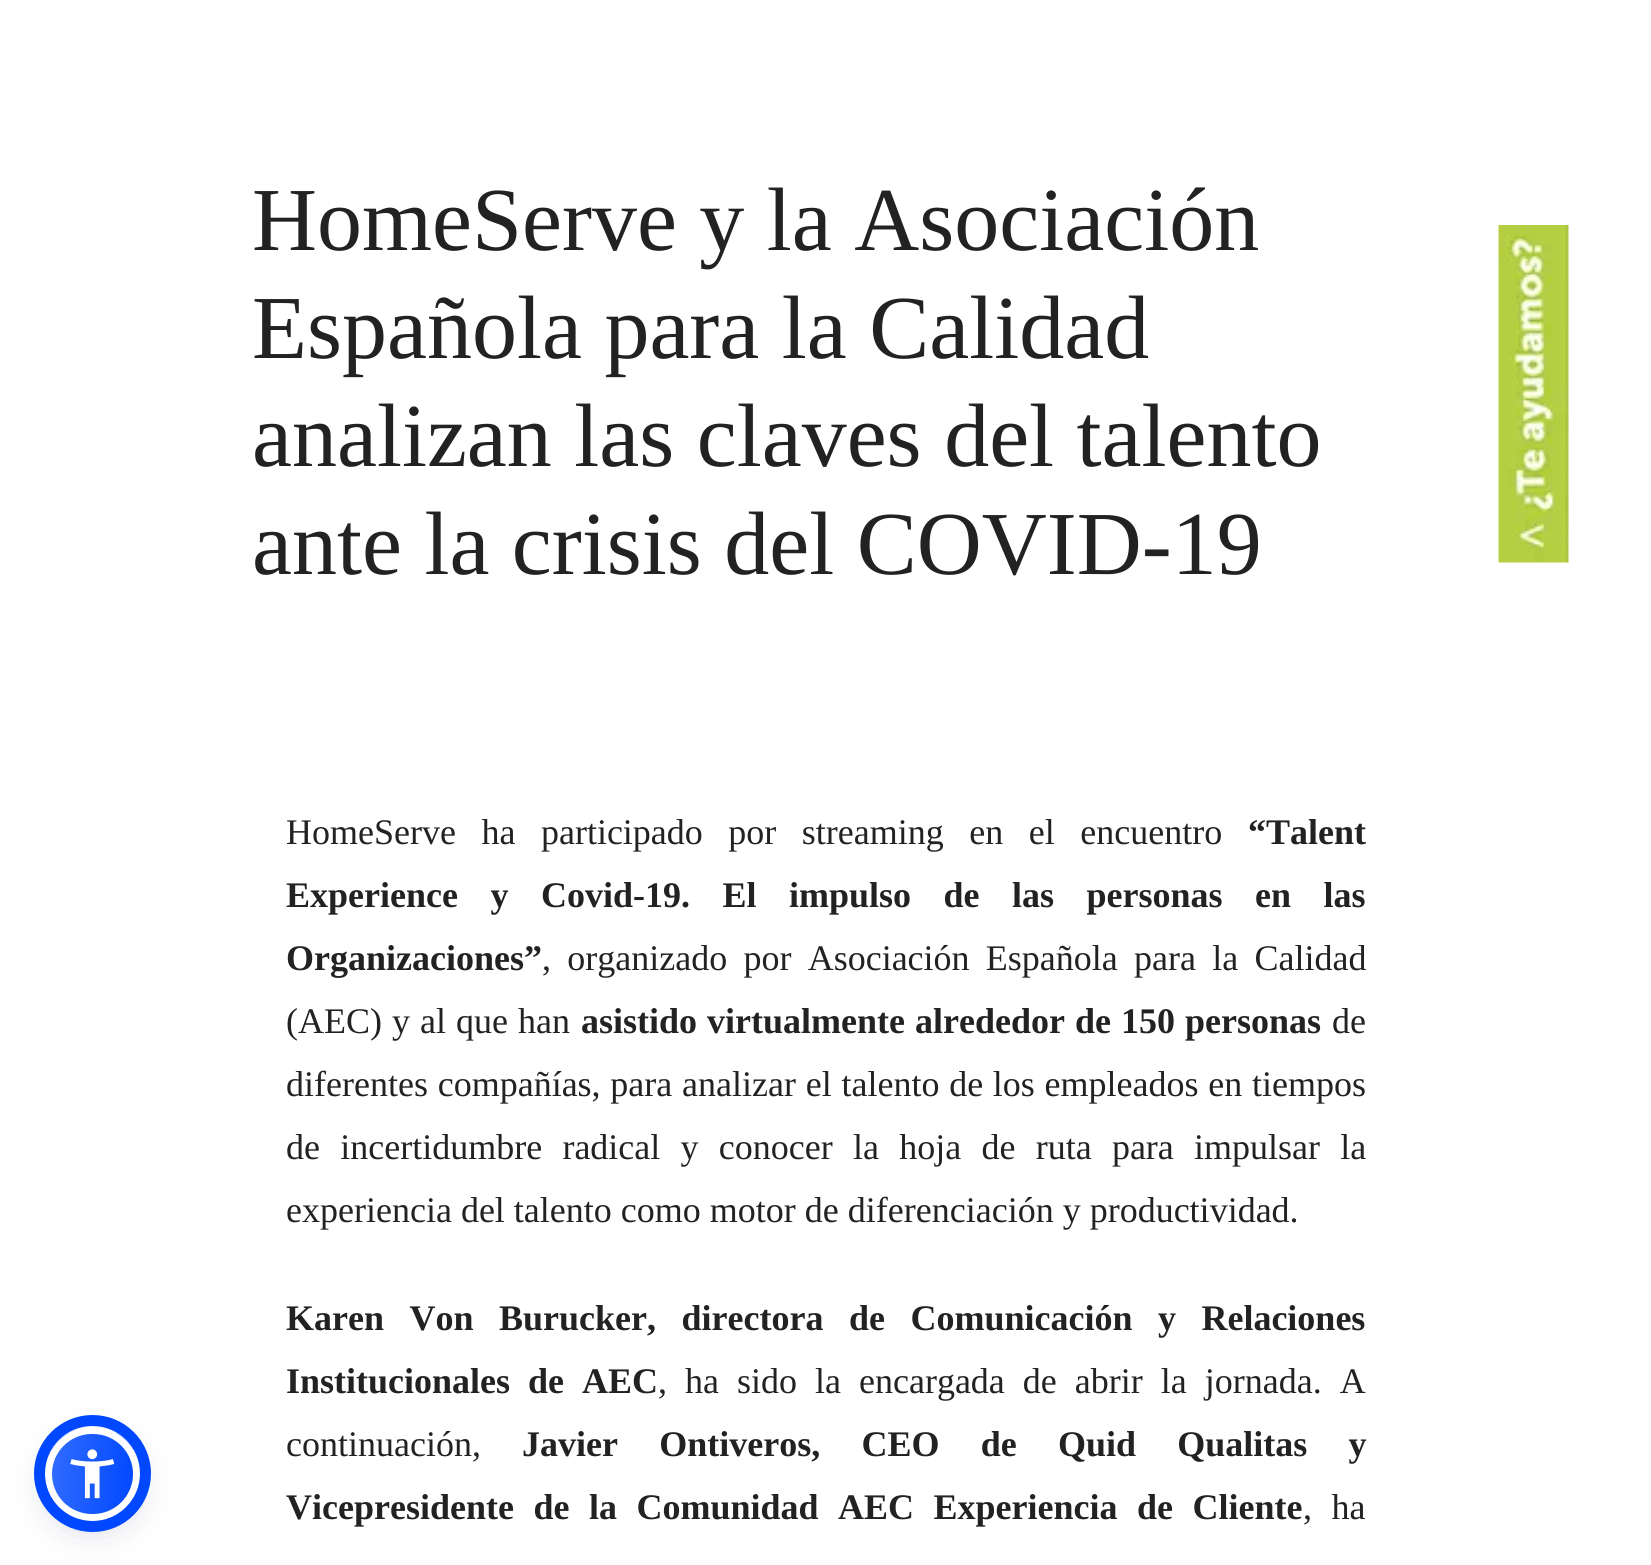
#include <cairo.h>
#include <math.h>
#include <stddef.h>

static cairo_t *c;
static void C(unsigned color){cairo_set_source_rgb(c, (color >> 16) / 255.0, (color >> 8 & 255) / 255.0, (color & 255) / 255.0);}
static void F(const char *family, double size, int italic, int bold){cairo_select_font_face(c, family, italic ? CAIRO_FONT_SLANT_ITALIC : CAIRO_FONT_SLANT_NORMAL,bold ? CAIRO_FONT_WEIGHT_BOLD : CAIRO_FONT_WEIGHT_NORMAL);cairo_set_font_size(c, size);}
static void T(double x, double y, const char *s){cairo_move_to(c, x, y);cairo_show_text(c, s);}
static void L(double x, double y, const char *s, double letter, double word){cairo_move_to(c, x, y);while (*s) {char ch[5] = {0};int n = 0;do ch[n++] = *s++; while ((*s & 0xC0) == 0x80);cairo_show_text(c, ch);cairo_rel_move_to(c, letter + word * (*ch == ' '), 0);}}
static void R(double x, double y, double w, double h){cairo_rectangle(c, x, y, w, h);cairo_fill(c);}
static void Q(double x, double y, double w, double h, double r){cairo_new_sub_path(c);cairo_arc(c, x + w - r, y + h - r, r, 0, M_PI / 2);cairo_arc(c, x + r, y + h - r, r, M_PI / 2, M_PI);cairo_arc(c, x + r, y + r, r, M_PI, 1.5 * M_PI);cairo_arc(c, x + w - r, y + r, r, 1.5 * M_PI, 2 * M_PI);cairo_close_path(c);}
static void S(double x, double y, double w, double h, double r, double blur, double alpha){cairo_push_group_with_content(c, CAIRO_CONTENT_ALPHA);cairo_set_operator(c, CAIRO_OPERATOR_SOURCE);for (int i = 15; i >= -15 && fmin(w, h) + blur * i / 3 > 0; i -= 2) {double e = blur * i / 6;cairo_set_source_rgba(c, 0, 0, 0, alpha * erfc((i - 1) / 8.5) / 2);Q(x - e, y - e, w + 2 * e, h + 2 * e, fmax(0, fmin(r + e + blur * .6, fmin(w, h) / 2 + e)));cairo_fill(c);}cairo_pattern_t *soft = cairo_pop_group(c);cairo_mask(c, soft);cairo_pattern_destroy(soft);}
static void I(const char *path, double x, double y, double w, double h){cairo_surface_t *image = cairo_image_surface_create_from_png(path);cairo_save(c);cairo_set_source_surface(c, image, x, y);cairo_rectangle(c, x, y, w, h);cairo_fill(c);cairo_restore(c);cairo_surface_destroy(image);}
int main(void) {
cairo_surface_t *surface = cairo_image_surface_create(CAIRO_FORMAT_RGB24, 1651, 1565);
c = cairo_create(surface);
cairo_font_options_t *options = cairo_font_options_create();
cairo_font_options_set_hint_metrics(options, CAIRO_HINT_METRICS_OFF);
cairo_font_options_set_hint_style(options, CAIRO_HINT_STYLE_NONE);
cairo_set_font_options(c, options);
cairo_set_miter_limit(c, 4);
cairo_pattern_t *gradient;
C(0xffffff);
cairo_paint(c);
F("Liberation Serif",90,0,0);
C(0x222222);
T(252,250,"HomeServe y la Asociación");
T(252,358,"Española para la Calidad");
T(252,466,"analizan las claves del talento");
T(252,574,"ante la crisis del COVID-19");
F("Liberation Serif",36,0,0);
L(286,844,"HomeServe ha participado por streaming en el encuentro",0,16.5);
F("Liberation Serif",36,0,1);
T(1248,844,"“Talent");
L(286,907,"Experience y Covid-19. El impulso de las personas en las",0,23.5);
T(286,970,"Organizaciones”");
F("Liberation Serif",36,0,0);
L(542,970,", organizado por Asociación Española para la Calidad",0,7.25);
L(286,1033,"(AEC) y al que han",0,1);
F("Liberation Serif",36,0,1);
L(581,1033,"asistido virtualmente alrededor de 150 personas",0,1);
F("Liberation Serif",36,0,0);
T(1332,1033,"de");
L(286,1096,"diferentes compañías, para analizar el talento de los empleados en tiempos",0,.75);
L(286,1159,"de incertidumbre radical y conocer la hoja de ruta para impulsar la",0,11.25);
T(286,1222,"experiencia del talento como motor de diferenciación y productividad.");
F("Liberation Serif",36,0,1);
L(286,1330,"Karen Von Burucker, directora de Comunicación y Relaciones",0,16.5);
L(286,1393,"Institucionales de AEC",0,9);
F("Liberation Serif",36,0,0);
L(658,1393,", ha sido la encargada de abrir la jornada. A",0,9);
T(286,1456,"continuación,");
F("Liberation Serif",36,0,1);
L(522,1456,"Javier Ontiveros, CEO de Quid Qualitas y",0,32.25);
L(286,1519,"Vicepresidente de la Comunidad AEC Experiencia de Cliente",0,10.5);
F("Liberation Serif",36,0,0);
L(1303,1519,", ha",0,10.5);
I("1.png",1498,225,71,338);
C(0x5d6494);
S(45,1431,95,95,47.5,4.5,.2);
C(0x252c61);
S(45,1438,95,94,47,17,.15);
cairo_save(c);
Q(45,1427,95,94,47);
cairo_clip(c);
gradient = cairo_pattern_create_linear(48,1469,137,1478);
cairo_pattern_add_color_stop_rgba(gradient,0,0.196,0.424,1,1);
cairo_pattern_add_color_stop_rgba(gradient,1,0,0.282,1,1);
cairo_set_source(c,gradient);
cairo_pattern_destroy(gradient);
R(52,1433,81,81);
cairo_restore(c);
Q(48.5,1430.5,88,87,43.5);
C(0xffffff);
cairo_set_line_width(c,7);
cairo_stroke(c);
cairo_arc(c,92.5,1473.5,53,0,2 * M_PI);
C(0x0048ff);
cairo_set_line_width(c,11);
cairo_stroke(c);
I("2.png",70,1449,45,50);
cairo_surface_write_to_png(surface, "o.png");
cairo_font_options_destroy(options);
cairo_destroy(c);
cairo_surface_destroy(surface);
return 0;
}
